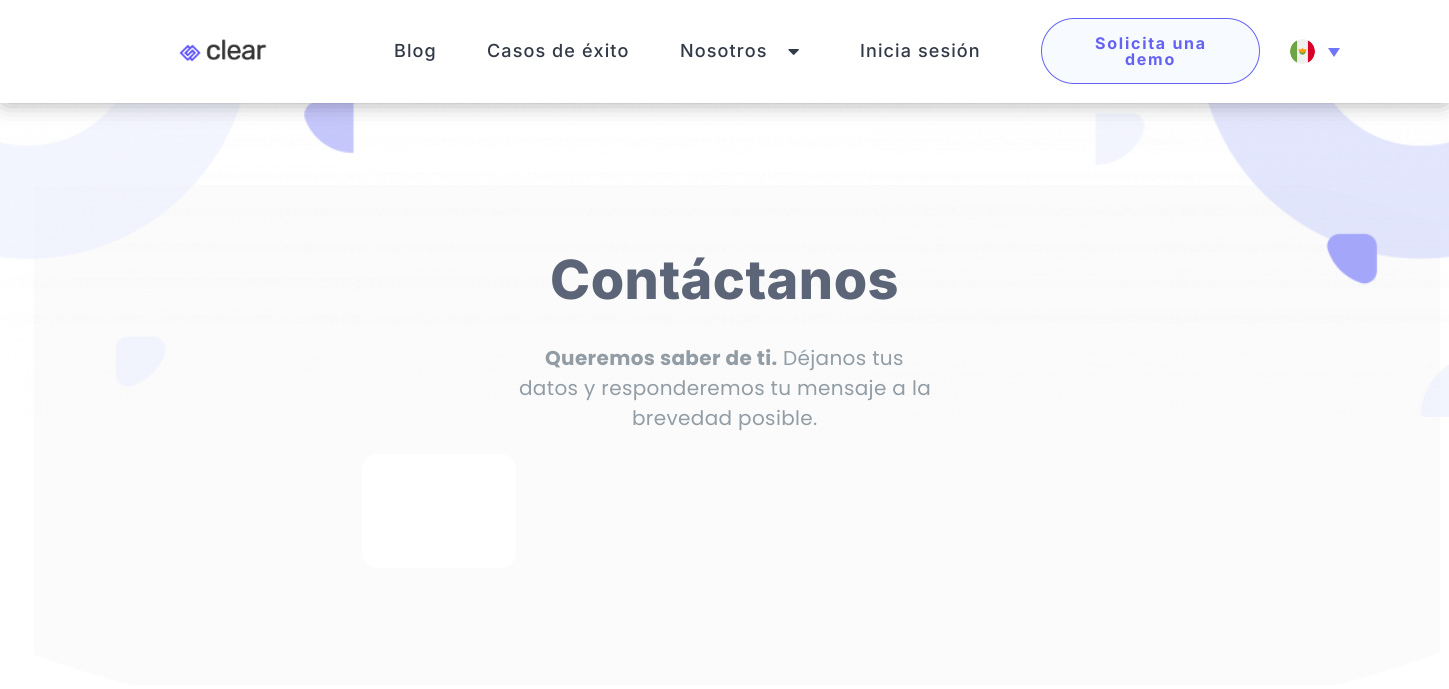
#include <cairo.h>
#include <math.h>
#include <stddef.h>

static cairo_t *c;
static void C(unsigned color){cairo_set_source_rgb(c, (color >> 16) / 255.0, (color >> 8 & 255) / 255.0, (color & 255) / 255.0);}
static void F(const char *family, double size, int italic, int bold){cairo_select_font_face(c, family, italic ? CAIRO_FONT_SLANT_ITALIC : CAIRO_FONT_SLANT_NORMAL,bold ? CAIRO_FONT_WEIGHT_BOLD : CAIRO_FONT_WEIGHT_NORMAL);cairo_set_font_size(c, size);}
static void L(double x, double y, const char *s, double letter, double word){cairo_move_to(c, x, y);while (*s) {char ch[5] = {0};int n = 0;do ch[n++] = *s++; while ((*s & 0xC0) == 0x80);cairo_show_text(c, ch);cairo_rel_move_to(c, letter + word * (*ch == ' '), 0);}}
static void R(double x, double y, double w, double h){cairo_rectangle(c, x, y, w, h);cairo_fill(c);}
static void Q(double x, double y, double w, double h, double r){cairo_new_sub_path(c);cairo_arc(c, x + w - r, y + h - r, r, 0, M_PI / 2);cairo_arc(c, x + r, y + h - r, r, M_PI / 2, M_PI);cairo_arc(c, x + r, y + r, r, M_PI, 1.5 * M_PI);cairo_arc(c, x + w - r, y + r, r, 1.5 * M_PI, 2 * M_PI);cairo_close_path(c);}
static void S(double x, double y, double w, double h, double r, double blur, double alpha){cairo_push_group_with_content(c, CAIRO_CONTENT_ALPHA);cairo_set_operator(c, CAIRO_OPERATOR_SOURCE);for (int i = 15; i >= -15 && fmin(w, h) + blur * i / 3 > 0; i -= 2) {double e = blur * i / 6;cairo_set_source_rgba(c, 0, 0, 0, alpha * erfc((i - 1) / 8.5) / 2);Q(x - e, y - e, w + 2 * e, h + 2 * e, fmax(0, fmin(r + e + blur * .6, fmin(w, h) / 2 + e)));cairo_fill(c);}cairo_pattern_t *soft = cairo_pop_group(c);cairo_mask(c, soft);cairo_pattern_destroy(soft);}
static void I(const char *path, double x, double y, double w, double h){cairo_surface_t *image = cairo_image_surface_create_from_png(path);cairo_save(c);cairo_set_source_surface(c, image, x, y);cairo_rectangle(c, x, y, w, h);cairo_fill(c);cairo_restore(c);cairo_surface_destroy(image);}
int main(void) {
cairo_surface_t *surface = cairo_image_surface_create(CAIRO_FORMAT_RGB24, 1449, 689);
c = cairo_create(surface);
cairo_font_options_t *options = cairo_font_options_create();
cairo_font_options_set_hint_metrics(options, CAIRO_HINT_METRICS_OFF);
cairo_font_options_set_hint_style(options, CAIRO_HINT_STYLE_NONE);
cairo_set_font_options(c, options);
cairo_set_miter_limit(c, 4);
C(0xffffff);
cairo_paint(c);
I("4.png",34,185,1406,500);
I("5.png",0,103,1449,314);
C(0x000000);
S(5,5,1439,93,0,12.5,.5);
C(0xffffff);
R(0,0,1449,103);
I("1.png",179,39,88,23);
F("Inter Medium",18,0,0);
C(0x323947);
L(394,57,"Blog",1.1,0);
L(487,57,"Casos de éxito",1.1,0);
L(680,57,"Nosotros",1.1,0);
I("2.png",788,49,11,6);
L(860,57,"Inicia sesión",1.1,0);
C(0xf7faff);
Q(1041.5,18.5,218,65,32.5);
cairo_fill_preserve(c);
C(0x6462f3);
cairo_set_line_width(c,1);
cairo_stroke(c);
F("Inter",16,0,1);
L(1095,49,"Solicita una",1.75,0);
L(1125,65,"demo",1.75,0);
I("3.png",1290,39,25,25);
C(0x7175fa);
cairo_new_path(c);
cairo_move_to(c,1328,48);
cairo_line_to(c,1340,48);
cairo_line_to(c,1334,57);
cairo_close_path(c);
cairo_fill(c);
F("Inter ExtraBold",54,0,0);
C(0x5c6477);
L(550,299,"Contáctanos",.5,0);
F("Poppins",20,0,1);
C(0x919ca5);
L(545,365,"Queremos saber de ti.",.35,0);
F("Poppins",20,0,0);
L(783,365,"Déjanos tus",.35,0);
L(519,395,"datos y responderemos tu mensaje a la",.35,0);
L(632,425,"brevedad posible.",.35,0);
C(0xffffff);
Q(362,454,154,114,15);
cairo_fill(c);
cairo_surface_write_to_png(surface, "o.png");
cairo_font_options_destroy(options);
cairo_destroy(c);
cairo_surface_destroy(surface);
return 0;
}
